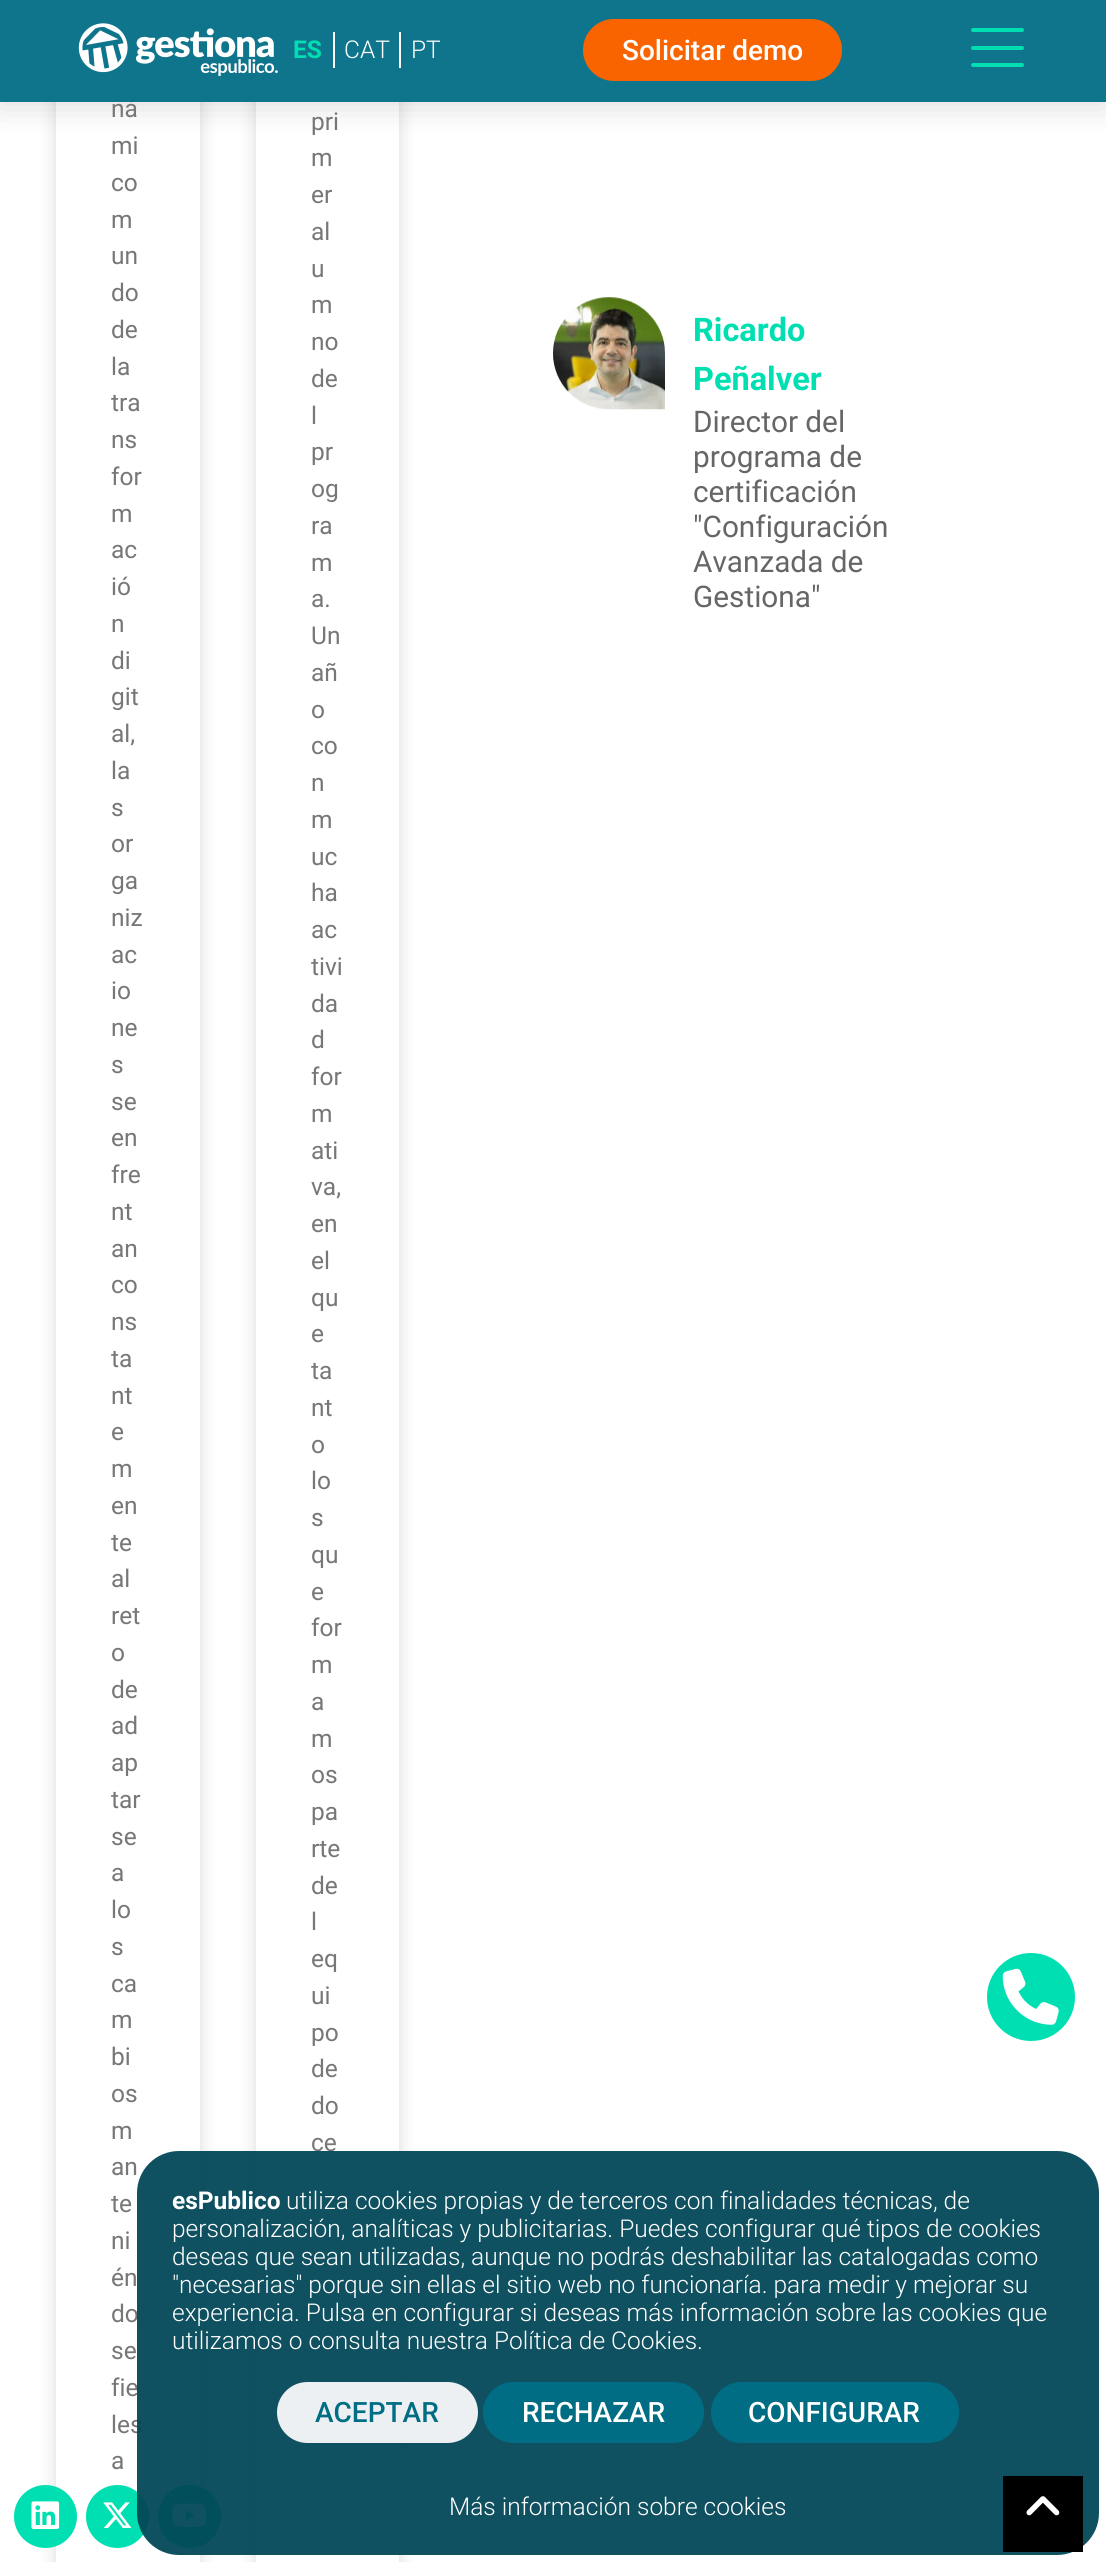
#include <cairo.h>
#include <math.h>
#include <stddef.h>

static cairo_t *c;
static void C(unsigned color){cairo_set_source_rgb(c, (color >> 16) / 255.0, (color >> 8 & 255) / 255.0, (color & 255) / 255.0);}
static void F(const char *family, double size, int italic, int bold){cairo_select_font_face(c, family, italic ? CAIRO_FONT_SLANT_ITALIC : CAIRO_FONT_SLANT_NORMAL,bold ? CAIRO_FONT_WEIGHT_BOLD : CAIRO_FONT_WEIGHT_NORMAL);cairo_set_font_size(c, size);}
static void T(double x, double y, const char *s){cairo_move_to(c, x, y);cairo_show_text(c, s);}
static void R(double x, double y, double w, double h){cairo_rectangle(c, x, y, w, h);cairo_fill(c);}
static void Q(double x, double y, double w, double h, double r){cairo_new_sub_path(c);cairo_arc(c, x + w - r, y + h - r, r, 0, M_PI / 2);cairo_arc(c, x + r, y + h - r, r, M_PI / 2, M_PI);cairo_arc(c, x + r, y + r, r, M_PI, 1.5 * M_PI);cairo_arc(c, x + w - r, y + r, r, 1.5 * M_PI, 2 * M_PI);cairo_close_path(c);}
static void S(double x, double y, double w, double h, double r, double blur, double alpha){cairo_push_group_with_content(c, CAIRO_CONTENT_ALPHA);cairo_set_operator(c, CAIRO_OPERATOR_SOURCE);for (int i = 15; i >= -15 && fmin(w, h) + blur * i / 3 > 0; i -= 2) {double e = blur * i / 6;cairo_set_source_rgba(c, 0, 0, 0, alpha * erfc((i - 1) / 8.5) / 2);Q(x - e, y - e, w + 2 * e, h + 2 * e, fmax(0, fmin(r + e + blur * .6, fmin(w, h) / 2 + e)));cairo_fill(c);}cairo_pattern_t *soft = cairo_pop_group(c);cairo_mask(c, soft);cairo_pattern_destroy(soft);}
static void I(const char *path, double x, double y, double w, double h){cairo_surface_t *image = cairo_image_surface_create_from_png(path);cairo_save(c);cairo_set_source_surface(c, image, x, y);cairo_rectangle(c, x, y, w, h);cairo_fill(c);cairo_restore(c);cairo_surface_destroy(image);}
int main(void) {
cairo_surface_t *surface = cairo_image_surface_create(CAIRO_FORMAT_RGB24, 1106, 2562);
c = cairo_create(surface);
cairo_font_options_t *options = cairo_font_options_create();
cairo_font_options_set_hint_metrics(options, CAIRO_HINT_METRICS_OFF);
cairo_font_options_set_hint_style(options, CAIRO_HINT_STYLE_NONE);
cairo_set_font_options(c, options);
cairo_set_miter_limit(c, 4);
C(0xffffff);
cairo_paint(c);
cairo_save(c);
cairo_set_fill_rule(c,CAIRO_FILL_RULE_EVEN_ODD);
cairo_new_path(c);
cairo_move_to(c,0,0);
cairo_line_to(c,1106,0);
cairo_line_to(c,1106,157);
cairo_line_to(c,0,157);
cairo_close_path(c);
cairo_move_to(c,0,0);
cairo_line_to(c,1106,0);
cairo_line_to(c,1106,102);
cairo_line_to(c,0,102);
cairo_close_path(c);
cairo_clip(c);
C(0x000000);
S(0,2,1106,101,0,17.5,.16);
cairo_restore(c);
cairo_save(c);
cairo_set_fill_rule(c,CAIRO_FILL_RULE_EVEN_ODD);
cairo_new_path(c);
cairo_move_to(c,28,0);
cairo_line_to(c,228,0);
cairo_line_to(c,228,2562);
cairo_line_to(c,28,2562);
cairo_close_path(c);
cairo_move_to(c,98,-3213);
cairo_line_to(c,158,-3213);
cairo_curve_to(c,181,-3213,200,-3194,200,-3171);
cairo_line_to(c,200,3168);
cairo_curve_to(c,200,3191,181,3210,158,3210);
cairo_line_to(c,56,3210);
cairo_line_to(c,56,-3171);
cairo_curve_to(c,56,-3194,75,-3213,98,-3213);
cairo_close_path(c);
cairo_clip(c);
C(0x000000);
S(56,-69,144,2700,42,9,.15);
cairo_restore(c);
F("Roboto",24.5,0,0);
C(0x777777);
T(111,117,"ná");
cairo_save(c);
cairo_set_fill_rule(c,CAIRO_FILL_RULE_EVEN_ODD);
cairo_new_path(c);
cairo_move_to(c,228,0);
cairo_line_to(c,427,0);
cairo_line_to(c,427,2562);
cairo_line_to(c,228,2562);
cairo_close_path(c);
cairo_move_to(c,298,-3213);
cairo_line_to(c,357,-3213);
cairo_curve_to(c,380,-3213,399,-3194,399,-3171);
cairo_line_to(c,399,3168);
cairo_curve_to(c,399,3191,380,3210,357,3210);
cairo_line_to(c,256,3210);
cairo_line_to(c,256,-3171);
cairo_curve_to(c,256,-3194,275,-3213,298,-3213);
cairo_close_path(c);
cairo_clip(c);
C(0x000000);
S(256,-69,143,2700,42,9,.15);
cairo_restore(c);
cairo_set_source_rgba(c,0,0.427,0.522,0.94);
R(0,0,1106,102);
I("1.png",78,23,200,53);
F("Roboto",24.5,0,1);
C(0x00dfb2);
T(293,58,"ES");
C(0xffffff);
R(333,32,2,36);
F("Roboto Light",24.5,0,0);
T(344,58,"CAT");
R(399,32,2,36);
T(411,58,"PT");
C(0xfa6400);
Q(585,21,255,58,29);
cairo_fill_preserve(c);
cairo_set_line_width(c,4);
cairo_stroke(c);
F("Roboto Medium",28,0,0);
C(0xffffff);
T(622,60,"Solicitar demo");
C(0x00dfb2);
Q(971,63,53,4,2);
cairo_fill(c);
Q(971,28,53,4,2);
cairo_fill(c);
Q(971,46,53,4,2);
cairo_fill(c);
F("Roboto",24.5,0,0);
C(0x777777);
T(111,154,"mi");
T(111,191,"co");
T(111,228,"m");
T(111,264,"un");
T(111,301,"do");
T(111,338,"de");
T(111,375,"la");
T(111,411,"tra");
T(111,448,"ns");
T(111,485,"for");
T(111,522,"m");
T(111,558,"ac");
T(111,595,"ió");
T(111,632,"n");
T(111,669,"di");
T(111,705,"git");
T(111,742,"al,");
T(111,779,"la");
T(111,816,"s");
T(111,852,"or");
T(111,889,"ga");
T(111,926,"niz");
T(111,963,"ac");
T(111,999,"io");
T(111,1036,"ne");
T(111,1073,"s");
T(111,1110,"se");
T(111,1146,"en");
T(111,1183,"fre");
T(111,1220,"nt");
T(111,1257,"an");
T(111,1293,"co");
T(111,1330,"ns");
T(111,1367,"ta");
T(111,1404,"nt");
T(111,1440,"e");
T(111,1477,"m");
T(111,1514,"en");
T(111,1551,"te");
T(111,1587,"al");
T(111,1624,"ret");
T(111,1661,"o");
T(111,1698,"de");
T(111,1734,"ad");
T(111,1771,"ap");
T(111,1808,"tar");
T(111,1845,"se");
T(111,1881,"a");
T(111,1918,"lo");
T(111,1955,"s");
T(111,1992,"ca");
T(111,2028,"m");
T(111,2065,"bi");
T(111,2102,"os");
T(111,2139,"m");
T(111,2175,"an");
T(111,2212,"te");
T(111,2249,"ni");
T(111,2286,"én");
T(111,2322,"do");
T(111,2359,"se");
T(111,2396,"fie");
T(111,2433,"les");
T(111,2469,"a");
T(311,130,"pri");
T(311,166,"m");
T(311,203,"er");
T(311,240,"al");
T(311,277,"u");
T(311,313,"m");
T(311,350,"no");
T(311,387,"de");
T(311,424,"l");
T(311,460,"pr");
T(311,497,"og");
T(311,534,"ra");
T(311,571,"m");
T(311,607,"a.");
T(311,644,"Un");
T(311,681,"añ");
T(311,718,"o");
T(311,754,"co");
T(311,791,"n");
T(311,828,"m");
T(311,865,"uc");
T(311,901,"ha");
T(311,938,"ac");
T(311,975,"tivi");
T(311,1012,"da");
T(311,1048,"d");
T(311,1085,"for");
T(311,1122,"m");
T(311,1159,"ati");
T(311,1195,"va,");
T(311,1232,"en");
T(311,1269,"el");
T(311,1306,"qu");
T(311,1342,"e");
T(311,1379,"ta");
T(311,1416,"nt");
T(311,1453,"o");
T(311,1489,"lo");
T(311,1526,"s");
T(311,1563,"qu");
T(311,1600,"e");
T(311,1636,"for");
T(311,1673,"m");
T(311,1710,"a");
T(311,1747,"m");
T(311,1783,"os");
T(311,1820,"pa");
T(311,1857,"rte");
T(311,1894,"de");
T(311,1930,"l");
T(311,1967,"eq");
T(311,2004,"ui");
T(311,2041,"po");
T(311,2077,"de");
T(311,2114,"do");
T(311,2151,"ce");
I("2.png",553,297,112,113);
F("Roboto",32.5,0,1);
C(0x00dfb2);
T(693,341,"Ricardo");
T(693,390,"Peñalver");
F("Roboto",29.75,0,0);
C(0x666666);
T(693,432,"Director del");
T(693,467,"programa de");
T(693,502,"certificación");
T(693,537,"\"Configuración");
T(693,572,"Avanzada de");
T(693,607,"Gestiona\"");
C(0x00dfb2);
cairo_new_path(c);
cairo_arc(c,1031,1997,42,0,2 * M_PI);
cairo_fill_preserve(c);
cairo_stroke(c);
I("3.png",1002,1968,57,57);
cairo_arc(c,117.5,2516.5,29.5,0,2 * M_PI);
cairo_fill_preserve(c);
cairo_stroke(c);
cairo_arc(c,189.5,2516.5,29.5,0,2 * M_PI);
cairo_fill_preserve(c);
cairo_stroke(c);
I("6.png",172,2503,34,24);
cairo_set_source_rgba(c,0.004,0.278,0.337,0.94);
Q(137,2151,962,404,42);
cairo_fill(c);
F("Roboto",24.5,0,1);
C(0xffffff);
T(172,2209,"esPublico");
F("Roboto Light",24.5,0,0);
T(286,2209,"utiliza cookies propias y de terceros con finalidades técnicas, de");
T(172,2237,"personalización, analíticas y publicitarias. Puedes configurar qué tipos de cookies");
T(172,2265,"deseas que sean utilizadas, aunque no podrás deshabilitar las catalogadas como");
T(172,2293,"\"necesarias\" porque sin ellas el sitio web no funcionaría. para medir y mejorar su");
T(172,2321,"experiencia. Pulsa en configurar si deseas más información sobre las cookies que");
T(172,2349,"utilizamos o consulta nuestra Política de Cookies.");
C(0xecf0f3);
Q(279,2384,197,57,28.5);
cairo_fill_preserve(c);
cairo_stroke(c);
F("Roboto Medium",28,0,0);
C(0x006d85);
T(315,2422,"ACEPTAR");
Q(485,2384,217,57,28.5);
cairo_fill_preserve(c);
cairo_stroke(c);
C(0xffffff);
T(522,2422,"RECHAZAR");
C(0x006d85);
Q(713,2384,244,57,28.5);
cairo_fill_preserve(c);
cairo_stroke(c);
C(0xffffff);
T(748,2422,"CONFIGURAR");
F("Roboto Light",24.5,0,0);
T(449,2515,"Más información sobre cookies");
C(0x00dfb2);
cairo_new_path(c);
cairo_arc(c,45.5,2516.5,29.5,0,2 * M_PI);
cairo_fill_preserve(c);
cairo_stroke(c);
I("4.png",31,2501,29,28);
I("5.png",103,2502,29,26);
C(0x000000);
R(1003,2476,80,76);
I("7.png",1026,2496,34,20);
cairo_surface_write_to_png(surface, "o.png");
cairo_font_options_destroy(options);
cairo_destroy(c);
cairo_surface_destroy(surface);
return 0;
}
